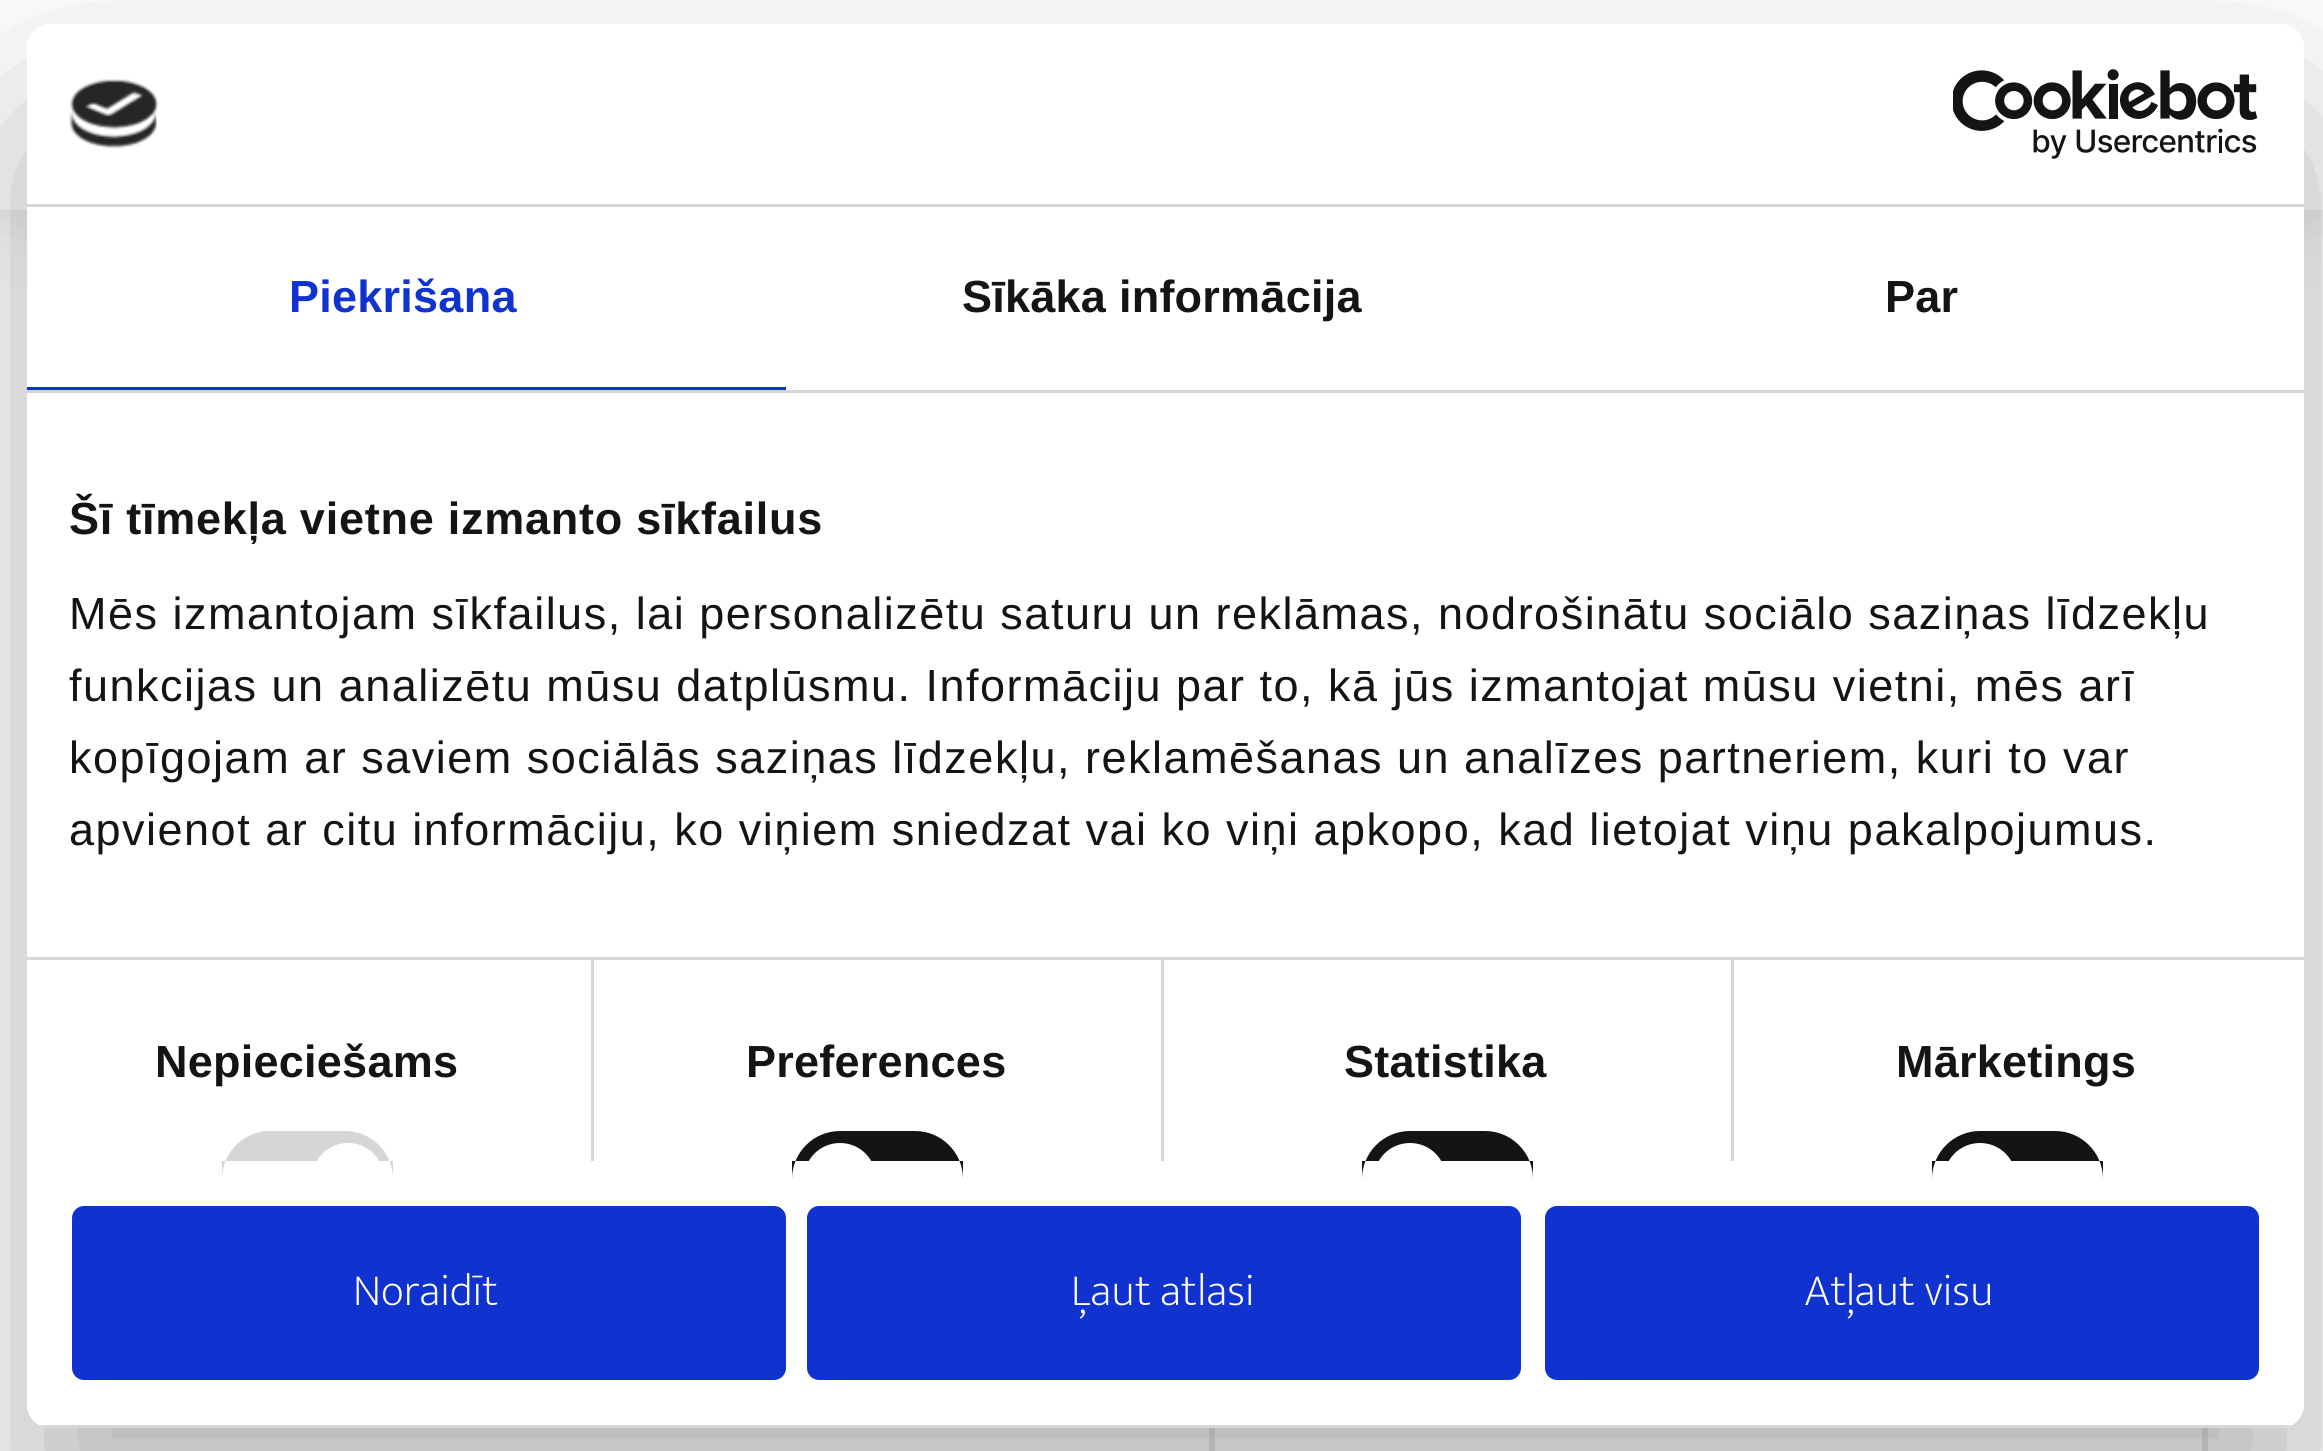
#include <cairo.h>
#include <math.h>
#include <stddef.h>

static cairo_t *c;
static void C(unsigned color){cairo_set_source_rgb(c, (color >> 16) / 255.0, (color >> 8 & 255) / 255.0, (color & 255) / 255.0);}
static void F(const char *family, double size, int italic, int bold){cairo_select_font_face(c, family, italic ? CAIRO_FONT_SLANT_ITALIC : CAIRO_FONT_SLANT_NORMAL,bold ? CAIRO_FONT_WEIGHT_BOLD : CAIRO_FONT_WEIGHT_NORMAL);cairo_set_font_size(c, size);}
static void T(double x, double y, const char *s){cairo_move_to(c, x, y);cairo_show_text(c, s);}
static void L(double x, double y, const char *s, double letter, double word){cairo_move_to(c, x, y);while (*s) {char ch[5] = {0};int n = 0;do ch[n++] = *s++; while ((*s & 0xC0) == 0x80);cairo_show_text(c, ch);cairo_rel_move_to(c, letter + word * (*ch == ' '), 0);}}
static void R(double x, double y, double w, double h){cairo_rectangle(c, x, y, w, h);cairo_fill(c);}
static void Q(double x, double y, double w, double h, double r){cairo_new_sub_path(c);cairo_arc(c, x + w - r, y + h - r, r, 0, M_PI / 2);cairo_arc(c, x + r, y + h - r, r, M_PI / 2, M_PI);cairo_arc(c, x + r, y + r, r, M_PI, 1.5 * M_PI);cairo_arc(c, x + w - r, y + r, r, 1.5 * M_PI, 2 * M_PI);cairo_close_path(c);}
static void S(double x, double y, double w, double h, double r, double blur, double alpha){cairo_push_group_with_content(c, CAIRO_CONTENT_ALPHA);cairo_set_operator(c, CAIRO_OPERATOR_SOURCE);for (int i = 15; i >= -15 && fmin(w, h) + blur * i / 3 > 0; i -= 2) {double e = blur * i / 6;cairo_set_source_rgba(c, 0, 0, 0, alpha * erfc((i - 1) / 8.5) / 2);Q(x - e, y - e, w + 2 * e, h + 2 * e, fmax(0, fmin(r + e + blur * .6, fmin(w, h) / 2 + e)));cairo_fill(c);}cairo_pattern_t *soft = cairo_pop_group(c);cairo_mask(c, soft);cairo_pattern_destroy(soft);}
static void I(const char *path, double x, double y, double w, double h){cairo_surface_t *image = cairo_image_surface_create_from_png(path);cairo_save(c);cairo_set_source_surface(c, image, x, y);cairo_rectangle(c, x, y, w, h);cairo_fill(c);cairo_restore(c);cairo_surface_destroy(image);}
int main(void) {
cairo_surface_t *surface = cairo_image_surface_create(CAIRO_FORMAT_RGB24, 2323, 1451);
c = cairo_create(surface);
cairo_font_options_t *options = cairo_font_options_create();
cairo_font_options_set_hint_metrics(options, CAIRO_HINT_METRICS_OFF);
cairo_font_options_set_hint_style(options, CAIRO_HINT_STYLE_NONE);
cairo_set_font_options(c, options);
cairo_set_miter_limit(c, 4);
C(0xffffff);
cairo_paint(c);
cairo_rectangle(c,1212,-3,993,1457);
C(0xe8e8e8);
cairo_set_line_width(c,6);
cairo_stroke(c);
C(0x000000);
S(15,15,2295,180,0,42,.2);
C(0xffffff);
R(0,0,2323,210);
cairo_save(c);
cairo_set_fill_rule(c,CAIRO_FILL_RULE_EVEN_ODD);
cairo_new_path(c);
cairo_move_to(c,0,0);
cairo_line_to(c,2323,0);
cairo_line_to(c,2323,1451);
cairo_line_to(c,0,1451);
cairo_close_path(c);
cairo_move_to(c,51,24);
cairo_line_to(c,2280,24);
cairo_curve_to(c,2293.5,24,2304,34.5,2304,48);
cairo_line_to(c,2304,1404);
cairo_curve_to(c,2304,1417.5,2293.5,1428,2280,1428);
cairo_line_to(c,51,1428);
cairo_curve_to(c,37.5,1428,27,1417.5,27,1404);
cairo_line_to(c,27,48);
cairo_curve_to(c,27,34.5,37.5,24,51,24);
cairo_close_path(c);
cairo_clip(c);
C(0x000000);
S(27,120,2277,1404,24,102,.3);
cairo_restore(c);
Q(27,24,2277,1404,24);
cairo_fill(c);
C(0xd6d6d6);
R(27,204,2277,3);
I("1.png",69,79,90,70);
I("2.png",1953,69,305,90);
R(27,390,2277,3);
C(0x1032cf);
R(27,387,759,3);
F("Liberation Sans",45,0,1);
L(289,312,"Piekrišana",.25,0);
C(0x141414);
L(962,312,"Sīkāka informācija",.25,0);
L(1885,312,"Par",.25,0);
C(0xd6d6d6);
R(27,957,2277,3);
C(0x141414);
L(69,534,"Šī tīmekļa vietne izmanto sīkfailus",.75,0);
F("Liberation Sans",45,0,0);
L(69,629,"Mēs izmantojam sīkfailus, lai personalizētu saturu un reklāmas, nodrošinātu sociālo saziņas līdzekļu",1.5,0);
L(69,701,"funkcijas un analizētu mūsu datplūsmu. Informāciju par to, kā jūs izmantojat mūsu vietni, mēs arī",1.5,0);
L(69,773,"kopīgojam ar saviem sociālās saziņas līdzekļu, reklamēšanas un analīzes partneriem, kuri to var",1.5,0);
L(69,845,"apvienot ar citu informāciju, ko viņiem sniedzat vai ko viņi apkopo, kad lietojat viņu pakalpojumus.",1.5,0);
C(0xd6d6d6);
R(591,960,3,201);
F("Liberation Sans",45,0,1);
C(0x141414);
L(155,1077,"Nepieciešams",.25,0);
C(0xd6d6d6);
cairo_new_path(c);
cairo_move_to(c,270,1131);
cairo_line_to(c,345,1131);
cairo_curve_to(c,371.5,1131,393,1152.5,393,1179);
cairo_line_to(c,393,1161);
cairo_line_to(c,222,1161);
cairo_line_to(c,222,1179);
cairo_curve_to(c,222,1152.5,243.5,1131,270,1131);
cairo_close_path(c);
cairo_fill(c);
C(0xffffff);
cairo_new_path(c);
cairo_move_to(c,348,1143);
cairo_curve_to(c,368,1143,384,1159,384,1179);
cairo_line_to(c,384,1161);
cairo_line_to(c,312,1161);
cairo_line_to(c,312,1179);
cairo_curve_to(c,312,1159,328,1143,348,1143);
cairo_close_path(c);
cairo_fill(c);
C(0xd6d6d6);
R(1161,960,3,201);
C(0x141414);
L(746,1077,"Preferences",.25,0);
cairo_new_path(c);
cairo_move_to(c,840,1131);
cairo_line_to(c,915,1131);
cairo_curve_to(c,941.5,1131,963,1152.5,963,1179);
cairo_line_to(c,963,1161);
cairo_line_to(c,792,1161);
cairo_line_to(c,792,1179);
cairo_curve_to(c,792,1152.5,813.5,1131,840,1131);
cairo_close_path(c);
cairo_fill(c);
C(0xffffff);
cairo_new_path(c);
cairo_move_to(c,840,1143);
cairo_curve_to(c,860,1143,876,1159,876,1179);
cairo_line_to(c,876,1161);
cairo_line_to(c,804,1161);
cairo_line_to(c,804,1179);
cairo_curve_to(c,804,1159,820,1143,840,1143);
cairo_close_path(c);
cairo_fill(c);
C(0xd6d6d6);
R(1731,960,3,201);
C(0x141414);
L(1344,1077,"Statistika",.25,0);
cairo_new_path(c);
cairo_move_to(c,1410,1131);
cairo_line_to(c,1485,1131);
cairo_curve_to(c,1511.5,1131,1533,1152.5,1533,1179);
cairo_line_to(c,1533,1161);
cairo_line_to(c,1362,1161);
cairo_line_to(c,1362,1179);
cairo_curve_to(c,1362,1152.5,1383.5,1131,1410,1131);
cairo_close_path(c);
cairo_fill(c);
C(0xffffff);
cairo_new_path(c);
cairo_move_to(c,1410,1143);
cairo_curve_to(c,1430,1143,1446,1159,1446,1179);
cairo_line_to(c,1446,1161);
cairo_line_to(c,1374,1161);
cairo_line_to(c,1374,1179);
cairo_curve_to(c,1374,1159,1390,1143,1410,1143);
cairo_close_path(c);
cairo_fill(c);
C(0x141414);
L(1896,1077,"Mārketings",.25,0);
cairo_new_path(c);
cairo_move_to(c,1980,1131);
cairo_line_to(c,2055,1131);
cairo_curve_to(c,2081.5,1131,2103,1152.5,2103,1179);
cairo_line_to(c,2103,1161);
cairo_line_to(c,1932,1161);
cairo_line_to(c,1932,1179);
cairo_curve_to(c,1932,1152.5,1953.5,1131,1980,1131);
cairo_close_path(c);
cairo_fill(c);
C(0xffffff);
cairo_new_path(c);
cairo_move_to(c,1980,1143);
cairo_curve_to(c,2000,1143,2016,1159,2016,1179);
cairo_line_to(c,2016,1161);
cairo_line_to(c,1944,1161);
cairo_line_to(c,1944,1179);
cairo_curve_to(c,1944,1159,1960,1143,1980,1143);
cairo_close_path(c);
cairo_fill(c);
cairo_save(c);
Q(27,24,2277,1404,24);
cairo_clip(c);
C(0xd6d6d6);
R(39,1425,2253,3);
cairo_restore(c);
C(0x1032cf);
Q(75,1209,708,168,9);
cairo_fill_preserve(c);
cairo_stroke(c);
F("Mukta Vaani ExtraLight",45,0,0);
C(0xffffff);
T(353,1305,"Noraidīt");
C(0x1032cf);
Q(810,1209,708,168,9);
cairo_fill_preserve(c);
cairo_stroke(c);
C(0xffffff);
T(1071,1305,"Ļaut atlasi");
C(0x1032cf);
Q(1548,1209,708,168,9);
cairo_fill_preserve(c);
cairo_stroke(c);
C(0xffffff);
T(1804,1305,"Atļaut visu");
cairo_surface_write_to_png(surface, "o.png");
cairo_font_options_destroy(options);
cairo_destroy(c);
cairo_surface_destroy(surface);
return 0;
}
